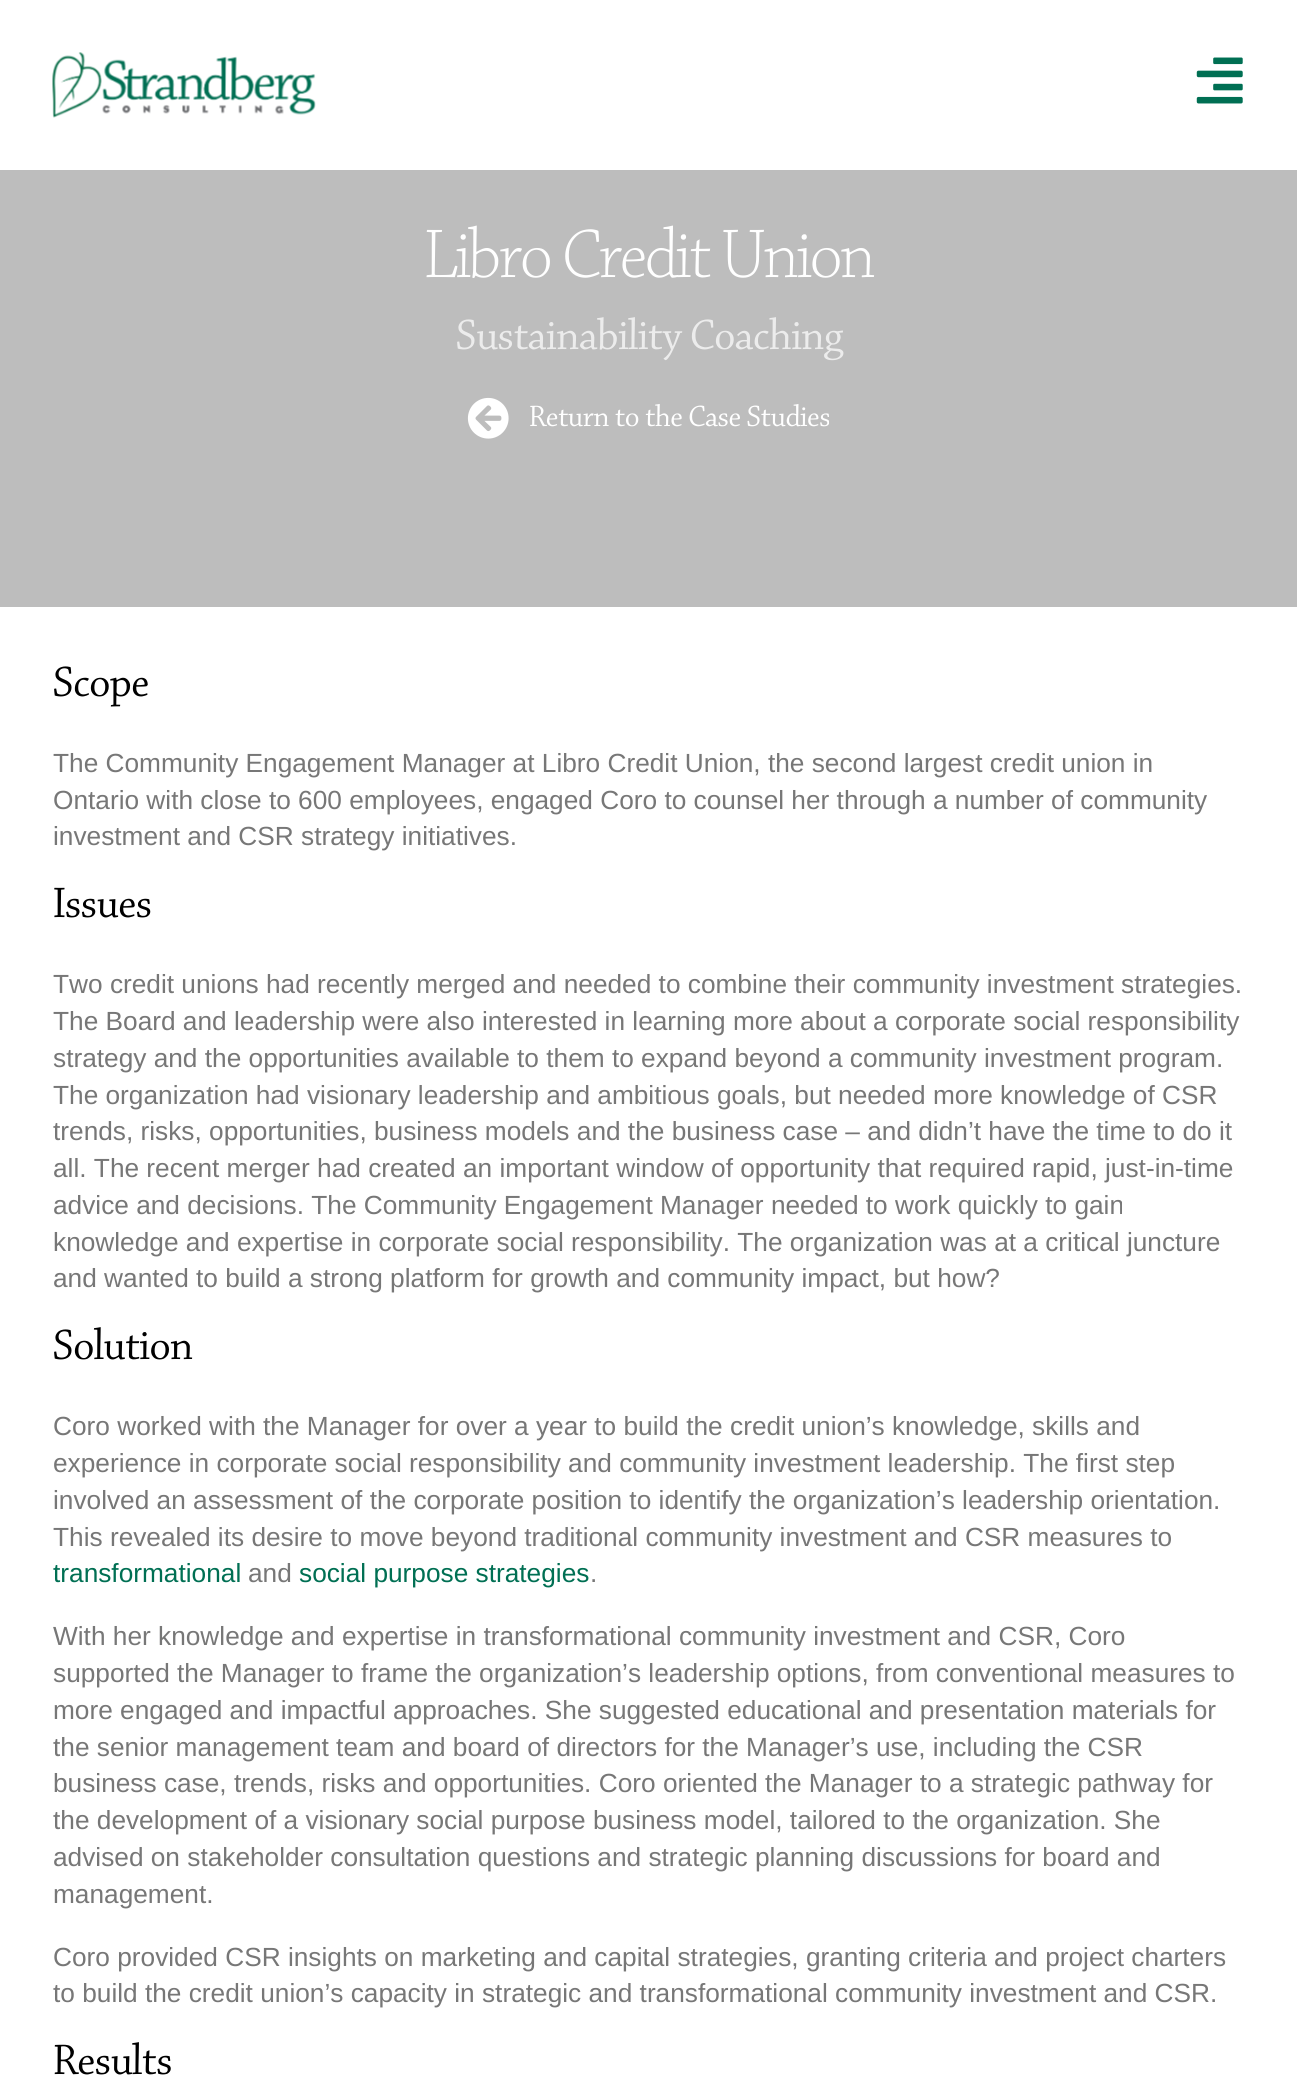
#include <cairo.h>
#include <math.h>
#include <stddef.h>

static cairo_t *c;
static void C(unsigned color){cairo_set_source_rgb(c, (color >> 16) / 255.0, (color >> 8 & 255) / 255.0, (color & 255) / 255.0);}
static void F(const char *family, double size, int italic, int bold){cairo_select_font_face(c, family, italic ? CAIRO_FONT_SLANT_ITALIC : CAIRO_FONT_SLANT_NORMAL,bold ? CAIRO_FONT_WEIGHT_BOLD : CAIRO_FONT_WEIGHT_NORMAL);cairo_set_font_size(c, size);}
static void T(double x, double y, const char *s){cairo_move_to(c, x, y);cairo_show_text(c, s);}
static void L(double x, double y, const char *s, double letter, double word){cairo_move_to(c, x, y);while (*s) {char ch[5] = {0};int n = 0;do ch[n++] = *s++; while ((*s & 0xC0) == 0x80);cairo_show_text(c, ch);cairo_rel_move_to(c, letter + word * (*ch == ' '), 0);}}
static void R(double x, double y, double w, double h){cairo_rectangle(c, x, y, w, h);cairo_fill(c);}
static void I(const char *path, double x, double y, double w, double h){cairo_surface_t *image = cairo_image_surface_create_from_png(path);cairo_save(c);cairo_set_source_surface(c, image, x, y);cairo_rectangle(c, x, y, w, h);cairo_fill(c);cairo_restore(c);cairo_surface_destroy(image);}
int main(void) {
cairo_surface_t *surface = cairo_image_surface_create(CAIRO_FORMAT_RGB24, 1297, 2100);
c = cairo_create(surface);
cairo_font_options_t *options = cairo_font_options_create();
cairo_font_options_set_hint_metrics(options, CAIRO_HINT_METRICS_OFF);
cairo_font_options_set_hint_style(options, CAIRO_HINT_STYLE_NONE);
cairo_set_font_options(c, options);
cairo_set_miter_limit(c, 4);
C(0xffffff);
cairo_paint(c);
I("1.png",52,52,264,66);
I("2.png",1196,57,47,47);
C(0xbdbdbd);
R(0,170,1297,437);
F("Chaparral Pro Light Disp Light",73.5,0,0);
C(0xffffff);
L(424,277,"Libro Credit Union",-1.75,0);
F("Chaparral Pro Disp",45.5,0,0);
C(0xececec);
T(456,349,"Sustainability Coaching");
I("3.png",467,397,42,42);
F("Chaparral Pro Disp",31.5,0,0);
C(0xffffff);
T(529,426,"Return to the Case Studies");
F("Chaparral Pro Disp",45.5,0,0);
C(0x000000);
T(53,696,"Scope");
F("Liberation Sans",26.25,0,0);
C(0x777777);
T(53,772,"The Community Engagement Manager at Libro Credit Union, the second largest credit union in");
T(53,809,"Ontario with close to 600 employees, engaged Coro to counsel her through a number of community");
T(53,845,"investment and CSR strategy initiatives.");
F("Chaparral Pro Disp",45.5,0,0);
C(0x000000);
T(53,917,"Issues");
F("Liberation Sans",26.25,0,0);
C(0x777777);
T(53,993,"Two credit unions had recently merged and needed to combine their community investment strategies.");
T(53,1030,"The Board and leadership were also interested in learning more about a corporate social responsibility");
T(53,1067,"strategy and the opportunities available to them to expand beyond a community investment program.");
T(53,1104,"The organization had visionary leadership and ambitious goals, but needed more knowledge of CSR");
T(53,1140,"trends, risks, opportunities, business models and the business case – and didn’t have the time to do it");
T(53,1177,"all. The recent merger had created an important window of opportunity that required rapid, just-in-time");
T(53,1214,"advice and decisions. The Community Engagement Manager needed to work quickly to gain");
T(53,1251,"knowledge and expertise in corporate social responsibility. The organization was at a critical juncture");
T(53,1287,"and wanted to build a strong platform for growth and community impact, but how?");
F("Chaparral Pro Disp",45.5,0,0);
C(0x000000);
T(53,1359,"Solution");
F("Liberation Sans",26.25,0,0);
C(0x777777);
T(53,1435,"Coro worked with the Manager for over a year to build the credit union’s knowledge, skills and");
T(53,1472,"experience in corporate social responsibility and community investment leadership. The first step");
T(53,1509,"involved an assessment of the corporate position to identify the organization’s leadership orientation.");
T(53,1546,"This revealed its desire to move beyond traditional community investment and CSR measures to");
C(0x006f53);
T(53,1582,"transformational");
C(0x777777);
T(248,1582,"and");
C(0x006f53);
T(299,1582,"social purpose strategies");
C(0x777777);
T(590,1582,".");
T(53,1645,"With her knowledge and expertise in transformational community investment and CSR, Coro");
T(53,1682,"supported the Manager to frame the organization’s leadership options, from conventional measures to");
T(53,1719,"more engaged and impactful approaches. She suggested educational and presentation materials for");
T(53,1756,"the senior management team and board of directors for the Manager’s use, including the CSR");
T(53,1792,"business case, trends, risks and opportunities. Coro oriented the Manager to a strategic pathway for");
T(53,1829,"the development of a visionary social purpose business model, tailored to the organization. She");
T(53,1866,"advised on stakeholder consultation questions and strategic planning discussions for board and");
T(53,1903,"management.");
T(53,1966,"Coro provided CSR insights on marketing and capital strategies, granting criteria and project charters");
T(53,2002,"to build the credit union’s capacity in strategic and transformational community investment and CSR.");
F("Chaparral Pro Disp",45.5,0,0);
C(0x000000);
T(53,2074,"Results");
cairo_surface_write_to_png(surface, "o.png");
cairo_font_options_destroy(options);
cairo_destroy(c);
cairo_surface_destroy(surface);
return 0;
}
